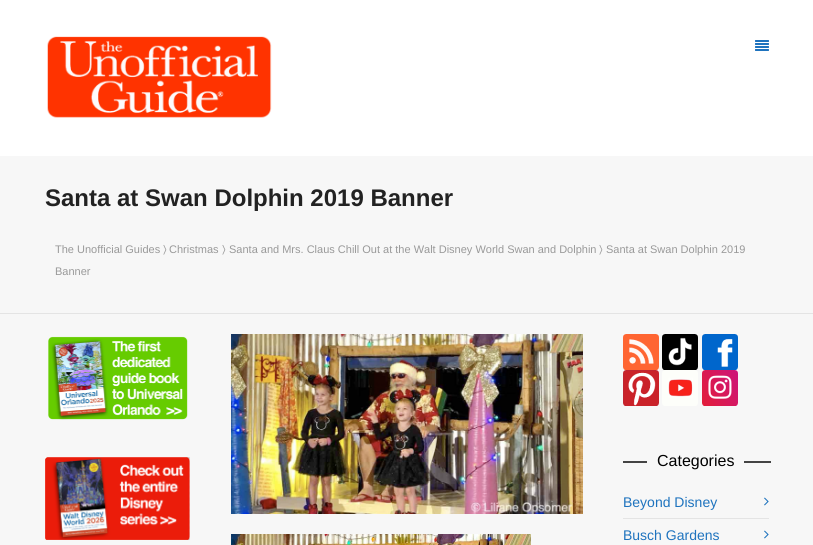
#include <cairo.h>
#include <math.h>
#include <stddef.h>

static cairo_t *c;
static void C(unsigned color){cairo_set_source_rgb(c, (color >> 16) / 255.0, (color >> 8 & 255) / 255.0, (color & 255) / 255.0);}
static void F(const char *family, double size, int italic, int bold){cairo_select_font_face(c, family, italic ? CAIRO_FONT_SLANT_ITALIC : CAIRO_FONT_SLANT_NORMAL,bold ? CAIRO_FONT_WEIGHT_BOLD : CAIRO_FONT_WEIGHT_NORMAL);cairo_set_font_size(c, size);}
static void T(double x, double y, const char *s){cairo_move_to(c, x, y);cairo_show_text(c, s);}
static void R(double x, double y, double w, double h){cairo_rectangle(c, x, y, w, h);cairo_fill(c);}
static void I(const char *path, double x, double y, double w, double h){cairo_surface_t *image = cairo_image_surface_create_from_png(path);cairo_save(c);cairo_set_source_surface(c, image, x, y);cairo_rectangle(c, x, y, w, h);cairo_fill(c);cairo_restore(c);cairo_surface_destroy(image);}
int main(void) {
cairo_surface_t *surface = cairo_image_surface_create(CAIRO_FORMAT_RGB24, 813, 545);
c = cairo_create(surface);
cairo_font_options_t *options = cairo_font_options_create();
cairo_font_options_set_hint_metrics(options, CAIRO_HINT_METRICS_OFF);
cairo_font_options_set_hint_style(options, CAIRO_HINT_STYLE_NONE);
cairo_set_font_options(c, options);
cairo_set_miter_limit(c, 4);
C(0xffffff);
cairo_paint(c);
I("1.png",47,36,225,82);
I("2.png",755,40,14,11);
C(0xf7f7f7);
R(0,156,813,389);
C(0xe4e4e4);
R(0,313,813,1);
F("Liberation Sans",24,0,1);
C(0x222222);
T(45,206,"Santa at Swan Dolphin 2019 Banner");
F("Liberation Sans",11,0,0);
C(0x999999);
T(55,253,"The Unofficial Guides");
F("FreeSans",11,0,0);
T(163,253,"〉");
F("Liberation Sans",11,0,0);
T(169,253,"Christmas");
F("FreeSans",11,0,0);
T(222,253,"〉");
F("Liberation Sans",11,0,0);
T(229,253,"Santa and Mrs. Claus Chill Out at the Walt Disney World Swan and Dolphin");
F("FreeSans",11,0,0);
T(599,253,"〉");
F("Liberation Sans",11,0,0);
T(606,253,"Santa at Swan Dolphin 2019");
T(55,275,"Banner");
I("3.png",48,336,140,84);
I("4.png",45,457,145,83);
I("5.png",231,334,352,180);
I("6.png",231,534,300,11);
I("7.png",623,334,36,36);
I("8.png",662,334,36,36);
I("9.png",702,334,36,36);
I("10.png",623,370,36,36);
I("11.png",662,370,36,36);
I("12.png",702,370,36,36);
C(0x444444);
R(623,461,148,2);
C(0xf7f7f7);
R(647,461,97,2);
F("Liberation Sans",16,0,0);
C(0x000000);
T(657,466,"Categories");
F("Liberation Sans",14,0,0);
C(0x1e73be);
T(623,507,"Beyond Disney");
I("13.png",764,497,5,9);
C(0xe4e4e4);
R(623,518,146,1);
C(0x1e73be);
T(623,540,"Busch Gardens");
I("13.png",764,530,5,9);
cairo_surface_write_to_png(surface, "o.png");
cairo_font_options_destroy(options);
cairo_destroy(c);
cairo_surface_destroy(surface);
return 0;
}
